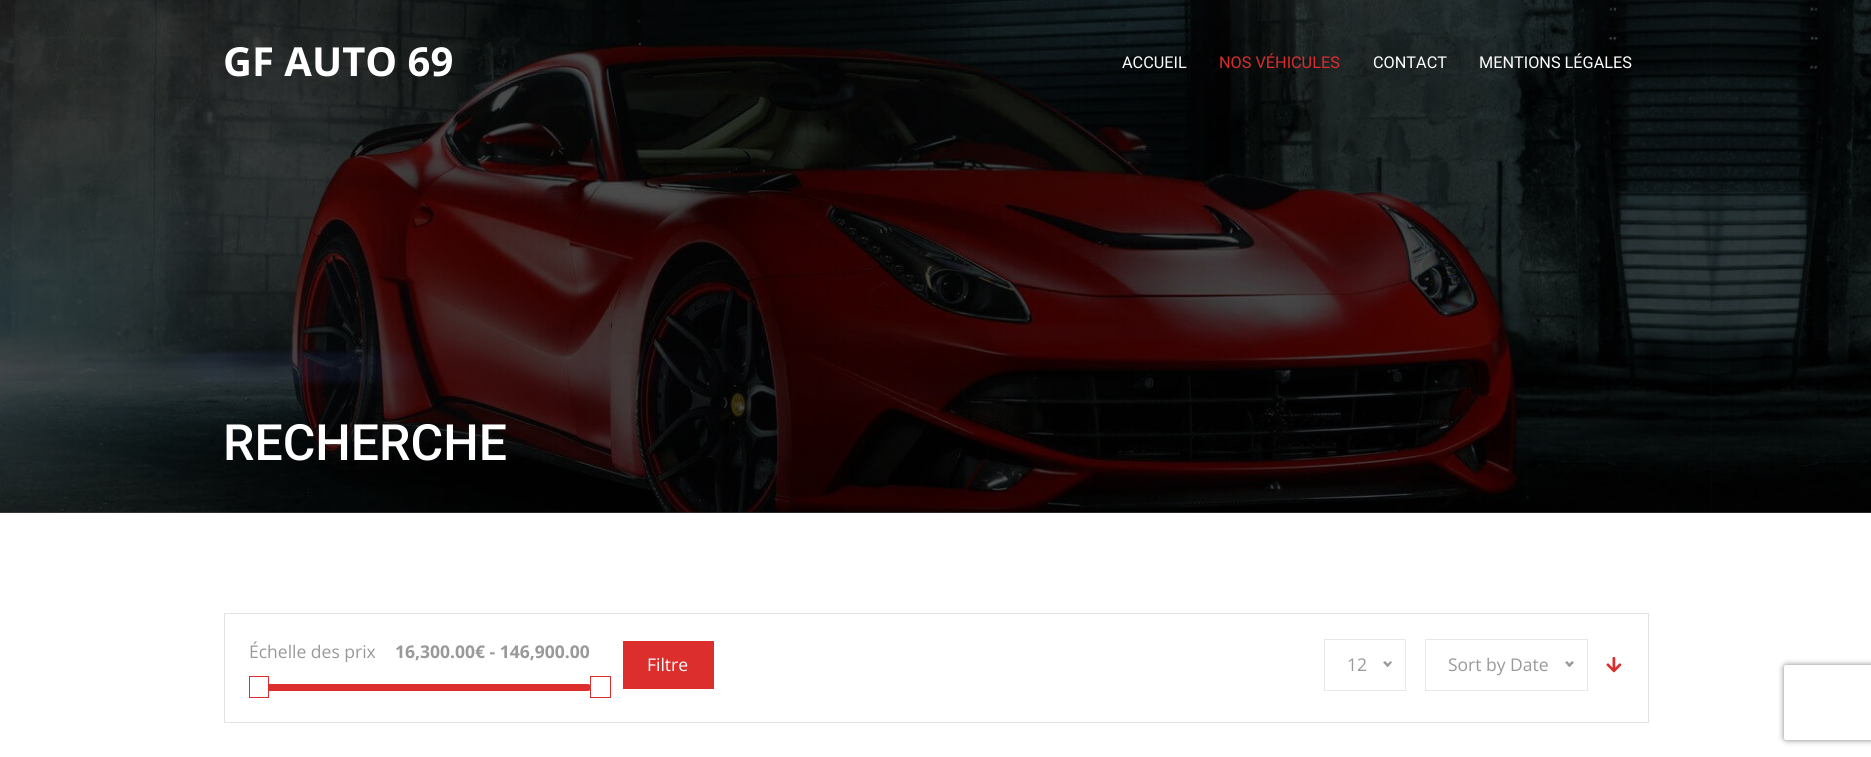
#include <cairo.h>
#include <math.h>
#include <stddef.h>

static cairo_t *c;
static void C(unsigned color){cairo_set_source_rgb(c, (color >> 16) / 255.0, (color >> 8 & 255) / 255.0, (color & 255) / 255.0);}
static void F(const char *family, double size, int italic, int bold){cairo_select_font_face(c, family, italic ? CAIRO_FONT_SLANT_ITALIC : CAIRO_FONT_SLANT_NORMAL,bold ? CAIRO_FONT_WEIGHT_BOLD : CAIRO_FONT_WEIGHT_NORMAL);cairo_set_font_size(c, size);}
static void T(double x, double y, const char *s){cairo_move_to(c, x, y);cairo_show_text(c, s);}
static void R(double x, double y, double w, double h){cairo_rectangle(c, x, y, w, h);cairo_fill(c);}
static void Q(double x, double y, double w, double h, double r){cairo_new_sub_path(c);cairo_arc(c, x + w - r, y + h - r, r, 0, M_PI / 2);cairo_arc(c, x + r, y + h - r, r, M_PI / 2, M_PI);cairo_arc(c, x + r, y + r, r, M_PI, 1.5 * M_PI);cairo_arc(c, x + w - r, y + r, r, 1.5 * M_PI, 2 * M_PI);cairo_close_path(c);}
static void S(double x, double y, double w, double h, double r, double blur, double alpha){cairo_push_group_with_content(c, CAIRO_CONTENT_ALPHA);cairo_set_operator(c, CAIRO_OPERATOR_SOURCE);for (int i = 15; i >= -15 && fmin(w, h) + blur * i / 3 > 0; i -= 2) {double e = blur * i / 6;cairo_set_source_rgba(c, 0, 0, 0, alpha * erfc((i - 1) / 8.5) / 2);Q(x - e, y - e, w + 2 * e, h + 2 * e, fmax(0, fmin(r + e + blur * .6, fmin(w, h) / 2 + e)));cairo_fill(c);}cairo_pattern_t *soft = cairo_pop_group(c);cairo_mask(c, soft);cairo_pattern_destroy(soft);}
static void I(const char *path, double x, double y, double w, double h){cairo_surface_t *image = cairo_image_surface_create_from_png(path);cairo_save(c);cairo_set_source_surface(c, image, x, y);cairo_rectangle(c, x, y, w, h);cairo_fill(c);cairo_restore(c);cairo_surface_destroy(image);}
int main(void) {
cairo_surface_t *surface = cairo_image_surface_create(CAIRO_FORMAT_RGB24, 1871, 757);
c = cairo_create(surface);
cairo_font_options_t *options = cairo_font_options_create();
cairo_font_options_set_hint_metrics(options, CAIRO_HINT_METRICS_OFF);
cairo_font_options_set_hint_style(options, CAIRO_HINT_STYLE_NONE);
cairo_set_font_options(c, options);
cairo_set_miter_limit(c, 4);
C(0xffffff);
cairo_paint(c);
C(0x4d4d4d);
R(0,512,1871,1);
I("1.png",0,0,1871,513);
F("Open Sans",40,0,1);
C(0xffffff);
T(223,76,"GF AUTO 69");
F("Roboto",16.25,0,0);
T(1122,68,"ACCUEIL");
C(0xdb2d2e);
T(1219,68,"NOS VÉHICULES");
C(0xffffff);
T(1373,68,"CONTACT");
T(1479,68,"MENTIONS LÉGALES");
F("Roboto Medium",50,0,0);
T(223,460,"RECHERCHE");
cairo_rectangle(c,224.5,613.5,1424,109);
C(0xe3e3e3);
cairo_set_line_width(c,1);
cairo_stroke(c);
F("Open Sans",17.5,0,0);
C(0x999999);
T(249,658,"Échelle des prix");
F("Open Sans",17.5,0,1);
T(395,658,"16,300.00€ - 146,900.00");
C(0xeeeeee);
R(587,684,4,7);
C(0xdb2e2d);
Q(250,684,341,7,3.5);
cairo_fill(c);
C(0xffffff);
R(250,684,18,7);
cairo_rectangle(c,249.5,676.5,19,21);
C(0xdb2e2d);
cairo_stroke(c);
cairo_rectangle(c,590.5,676.5,20,21);
cairo_stroke(c);
R(623,641,91,48);
F("Open Sans",17.5,0,0);
C(0xffffff);
T(647,671,"Filtre");
cairo_rectangle(c,1324.5,639.5,81,51);
C(0xe8e8e8);
cairo_stroke(c);
C(0x999999);
T(1347,671,"12");
cairo_new_path(c);
cairo_move_to(c,1390.5,661);
cairo_line_to(c,1392,662.5);
cairo_line_to(c,1387.5,667);
cairo_line_to(c,1386,665.5);
cairo_close_path(c);
cairo_fill(c);
cairo_new_path(c);
cairo_move_to(c,1385,661);
cairo_line_to(c,1389.5,665.5);
cairo_line_to(c,1387.5,667);
cairo_line_to(c,1383,662.5);
cairo_close_path(c);
cairo_fill(c);
cairo_rectangle(c,1425.5,639.5,162,51);
C(0xe8e8e8);
cairo_stroke(c);
C(0x999999);
T(1448,671,"Sort by Date");
cairo_new_path(c);
cairo_move_to(c,1572,661);
cairo_line_to(c,1574,662.5);
cairo_line_to(c,1569.5,667);
cairo_line_to(c,1567.5,665.5);
cairo_close_path(c);
cairo_fill(c);
cairo_new_path(c);
cairo_move_to(c,1567,661);
cairo_line_to(c,1571,665.5);
cairo_line_to(c,1569.5,667);
cairo_line_to(c,1565,662.5);
cairo_close_path(c);
cairo_fill(c);
I("2.png",1606,657,16,16);
cairo_save(c);
cairo_set_fill_rule(c,CAIRO_FILL_RULE_EVEN_ODD);
cairo_new_path(c);
cairo_move_to(c,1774,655);
cairo_line_to(c,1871,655);
cairo_line_to(c,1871,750);
cairo_line_to(c,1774,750);
cairo_close_path(c);
cairo_move_to(c,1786.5,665);
cairo_line_to(c,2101.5,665);
cairo_curve_to(c,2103,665,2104,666,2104,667.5);
cairo_line_to(c,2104,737.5);
cairo_curve_to(c,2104,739,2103,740,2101.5,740);
cairo_line_to(c,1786.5,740);
cairo_curve_to(c,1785,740,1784,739,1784,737.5);
cairo_line_to(c,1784,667.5);
cairo_curve_to(c,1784,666,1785,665,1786.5,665);
cairo_close_path(c);
cairo_clip(c);
C(0x808080);
S(1784,665,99,75,2.5,3,1);
cairo_restore(c);
cairo_surface_write_to_png(surface, "o.png");
cairo_font_options_destroy(options);
cairo_destroy(c);
cairo_surface_destroy(surface);
return 0;
}
